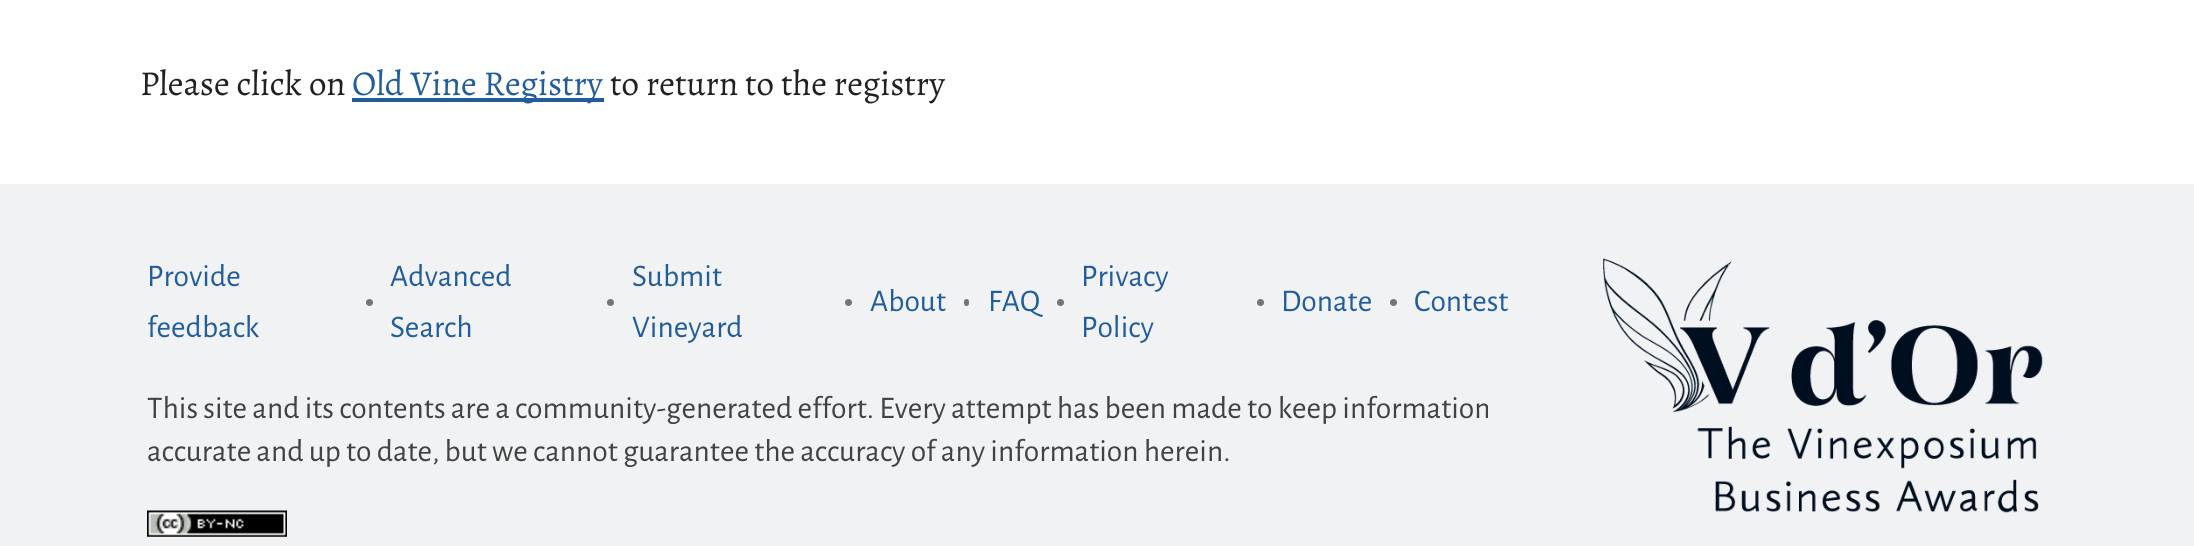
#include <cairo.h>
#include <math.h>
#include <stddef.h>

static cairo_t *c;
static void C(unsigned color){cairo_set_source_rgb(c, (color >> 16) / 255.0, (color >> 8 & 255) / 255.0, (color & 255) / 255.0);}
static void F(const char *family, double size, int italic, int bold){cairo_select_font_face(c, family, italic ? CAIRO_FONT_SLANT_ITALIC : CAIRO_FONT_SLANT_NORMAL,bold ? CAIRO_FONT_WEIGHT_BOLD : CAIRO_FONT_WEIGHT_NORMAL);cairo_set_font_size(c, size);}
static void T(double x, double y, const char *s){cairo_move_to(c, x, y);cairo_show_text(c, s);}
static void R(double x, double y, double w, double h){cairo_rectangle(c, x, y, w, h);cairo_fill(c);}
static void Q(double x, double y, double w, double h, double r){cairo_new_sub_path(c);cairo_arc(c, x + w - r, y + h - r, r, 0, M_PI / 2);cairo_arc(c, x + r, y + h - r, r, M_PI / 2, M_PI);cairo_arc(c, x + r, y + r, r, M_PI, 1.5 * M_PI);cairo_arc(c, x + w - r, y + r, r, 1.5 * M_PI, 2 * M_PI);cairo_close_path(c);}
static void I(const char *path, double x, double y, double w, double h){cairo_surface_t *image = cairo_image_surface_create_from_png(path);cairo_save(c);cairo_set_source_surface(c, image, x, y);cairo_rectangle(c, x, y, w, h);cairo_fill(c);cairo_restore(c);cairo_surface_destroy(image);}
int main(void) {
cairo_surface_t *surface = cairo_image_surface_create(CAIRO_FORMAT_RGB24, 2194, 546);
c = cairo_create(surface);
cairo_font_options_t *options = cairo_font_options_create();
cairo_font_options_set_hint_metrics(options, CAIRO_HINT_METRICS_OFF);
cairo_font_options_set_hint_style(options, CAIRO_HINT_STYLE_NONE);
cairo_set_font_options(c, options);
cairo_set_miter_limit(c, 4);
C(0xffffff);
cairo_paint(c);
F("Alegreya",35,0,0);
C(0x212121);
T(140,95,"Please click on");
C(0x215d9c);
R(352,98,252,4);
T(352,95,"Old Vine Registry");
C(0x212121);
T(610,95,"to return to the registry");
C(0xf1f2f4);
R(0,184,2194,362);
F("Alegreya Sans",31.5,0,0);
C(0x215d9c);
T(147,286,"Provide");
T(147,337,"feedback");
C(0x757575);
cairo_new_path(c);
cairo_arc(c,369.5,302.5,3.5,0,2 * M_PI);
cairo_fill(c);
C(0x215d9c);
T(390,286,"Advanced");
T(390,337,"Search");
C(0x757575);
cairo_new_path(c);
cairo_arc(c,610.5,302.5,3.5,0,2 * M_PI);
cairo_fill(c);
C(0x215d9c);
T(632,286,"Submit");
T(632,337,"Vineyard");
C(0x757575);
cairo_new_path(c);
cairo_arc(c,848.5,302.5,3.5,0,2 * M_PI);
cairo_fill(c);
C(0x215d9c);
T(870,311,"About");
C(0x757575);
Q(964,299,5,7,2.5);
cairo_fill(c);
C(0x215d9c);
T(988,311,"FAQ");
C(0x757575);
cairo_new_path(c);
cairo_arc(c,1060.5,302.5,3.5,0,2 * M_PI);
cairo_fill(c);
C(0x215d9c);
T(1081,286,"Privacy");
T(1081,337,"Policy");
C(0x757575);
cairo_new_path(c);
cairo_arc(c,1260.5,302.5,3.5,0,2 * M_PI);
cairo_fill(c);
C(0x215d9c);
T(1281,311,"Donate");
C(0x757575);
cairo_new_path(c);
cairo_arc(c,1393.5,302.5,3.5,0,2 * M_PI);
cairo_fill(c);
C(0x215d9c);
T(1414,311,"Contest");
C(0x424242);
T(147,418,"This site and its contents are a community-generated effort. Every attempt has been made to keep information");
T(147,461,"accurate and up to date, but we cannot guarantee the accuracy of any information herein.");
I("1.png",147,510,140,27);
I("2.png",1603,258,440,255);
cairo_surface_write_to_png(surface, "o.png");
cairo_font_options_destroy(options);
cairo_destroy(c);
cairo_surface_destroy(surface);
return 0;
}
